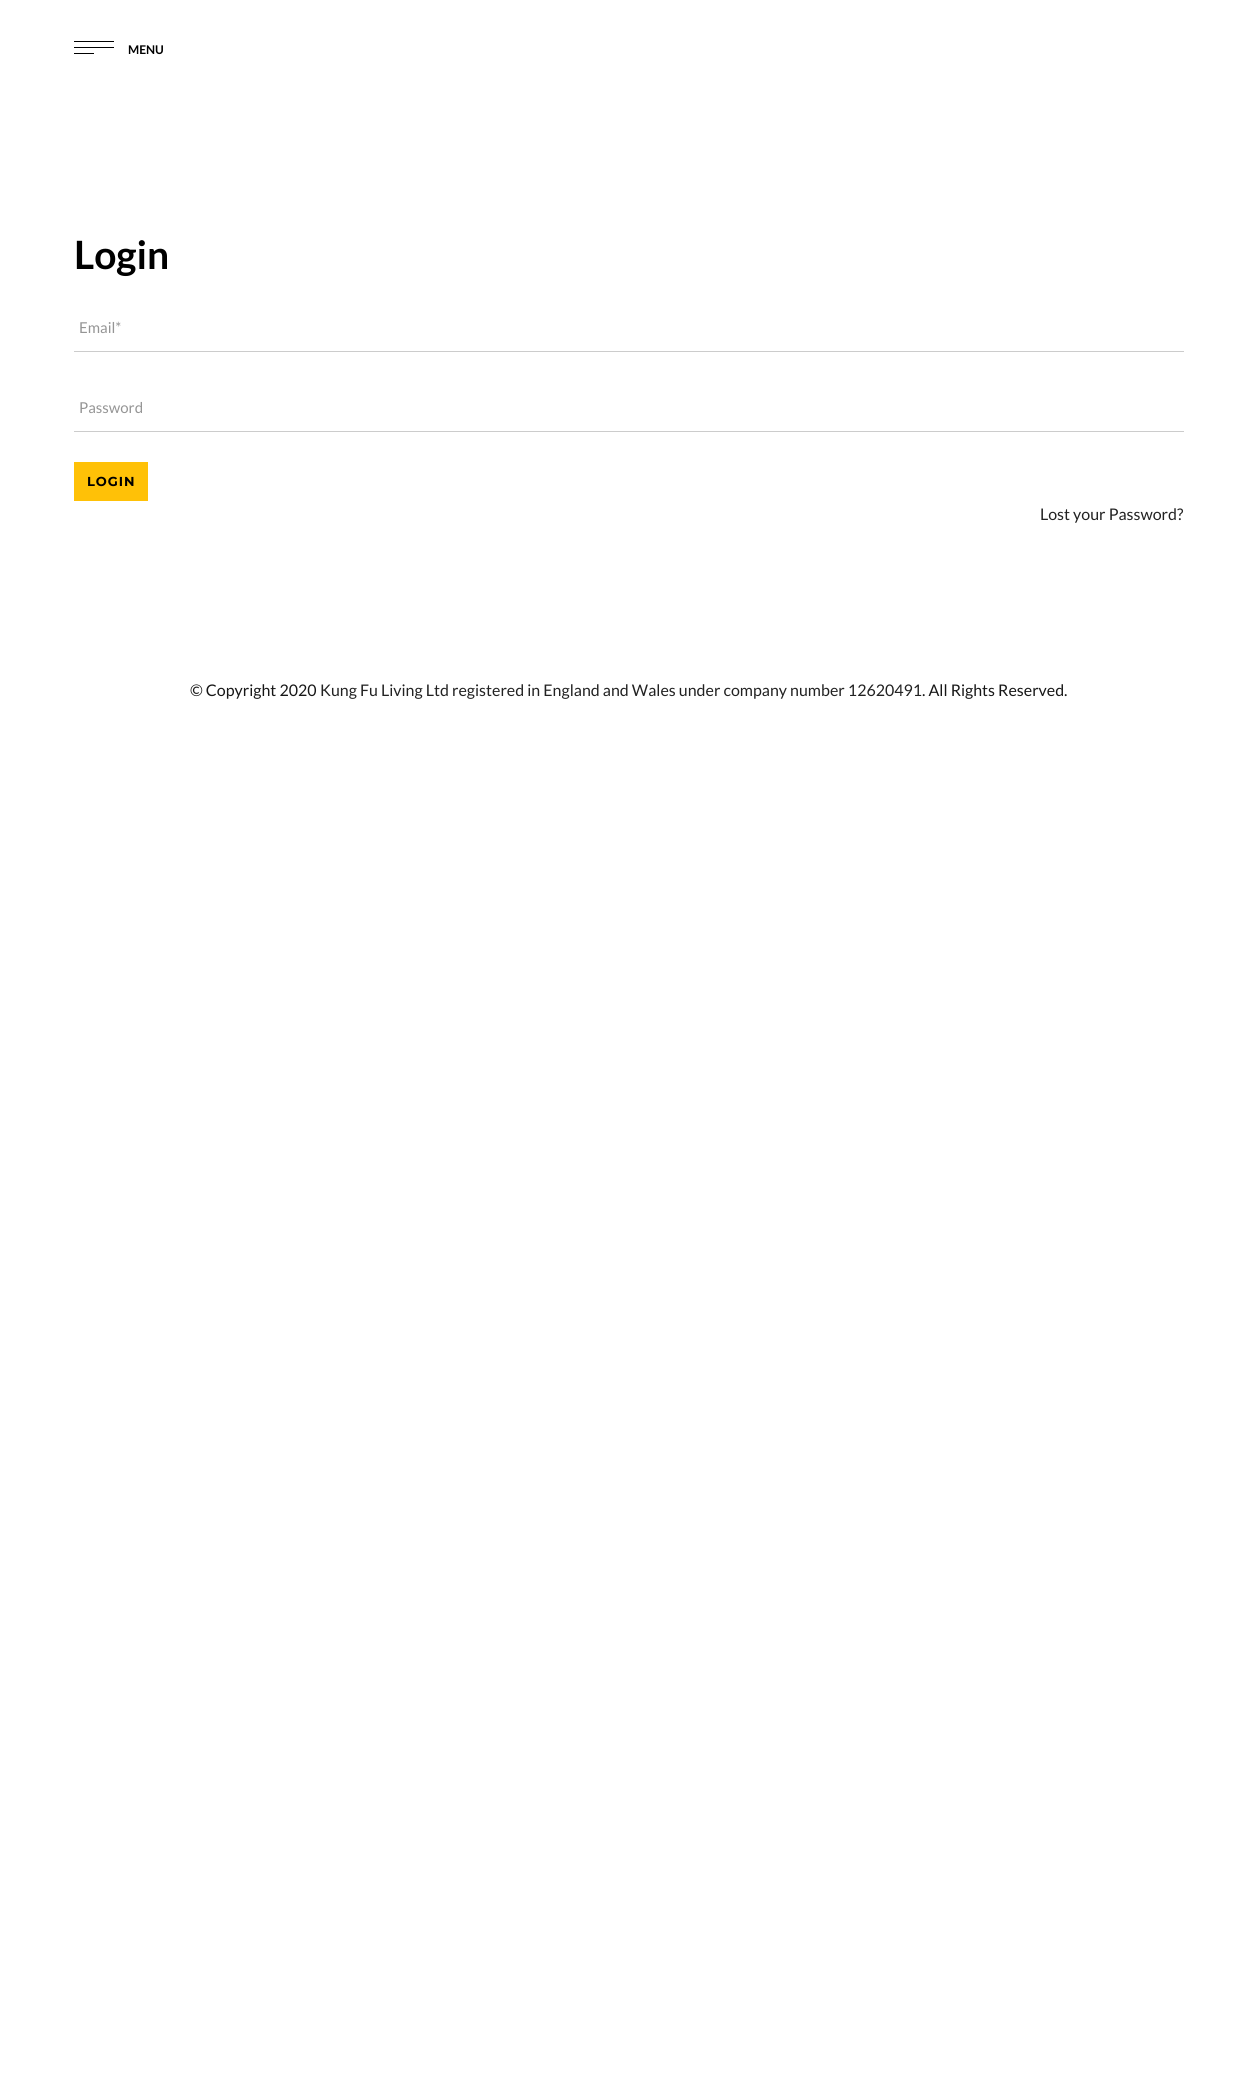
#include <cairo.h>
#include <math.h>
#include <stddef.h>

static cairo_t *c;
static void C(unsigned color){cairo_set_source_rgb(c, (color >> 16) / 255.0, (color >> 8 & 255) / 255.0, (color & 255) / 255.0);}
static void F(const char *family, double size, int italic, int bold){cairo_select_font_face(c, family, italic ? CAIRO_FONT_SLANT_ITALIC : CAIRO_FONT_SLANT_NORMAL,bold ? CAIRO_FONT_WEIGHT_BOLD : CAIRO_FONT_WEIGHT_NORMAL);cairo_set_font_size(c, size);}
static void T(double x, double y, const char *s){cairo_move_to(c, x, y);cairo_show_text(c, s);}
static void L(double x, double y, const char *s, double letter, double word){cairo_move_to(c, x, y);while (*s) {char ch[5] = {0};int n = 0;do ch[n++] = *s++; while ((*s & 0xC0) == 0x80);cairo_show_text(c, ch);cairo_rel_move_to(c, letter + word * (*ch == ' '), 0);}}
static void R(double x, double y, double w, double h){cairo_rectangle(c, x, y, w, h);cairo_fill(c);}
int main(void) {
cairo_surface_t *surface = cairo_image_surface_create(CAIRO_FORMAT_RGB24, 1257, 2100);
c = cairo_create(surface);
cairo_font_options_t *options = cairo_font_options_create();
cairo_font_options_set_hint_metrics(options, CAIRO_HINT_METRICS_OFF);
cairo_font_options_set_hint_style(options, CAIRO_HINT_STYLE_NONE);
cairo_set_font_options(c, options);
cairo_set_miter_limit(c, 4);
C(0xffffff);
cairo_paint(c);
C(0x000000);
R(74,41,40,1);
R(74,47,40,1);
R(74,53,20,1);
F("Lato",12,0,1);
T(128,54,"MENU");
F("Lato",39,0,1);
T(74,269,"Login");
C(0xcccccc);
R(74,351,1110,1);
F("Lato",15,0,0);
C(0x959595);
T(79,333,"Email*");
C(0xcccccc);
R(74,431,1110,1);
C(0x959595);
T(79,413,"Password");
C(0xffc107);
R(74,462,74,39);
F("Montserrat",13,0,1);
C(0x000000);
L(87,486,"LOGIN",1,0);
F("Lato",16,0,0);
C(0x222222);
T(1040,520,"Lost your Password?");
C(0x171717);
T(190,696,"© Copyright 2020");
C(0x222222);
T(320,696,"Kung Fu Living Ltd registered in England and Wales under company number 12620491");
C(0x171717);
T(922,696,". All Rights Reserved.");
cairo_surface_write_to_png(surface, "o.png");
cairo_font_options_destroy(options);
cairo_destroy(c);
cairo_surface_destroy(surface);
return 0;
}
